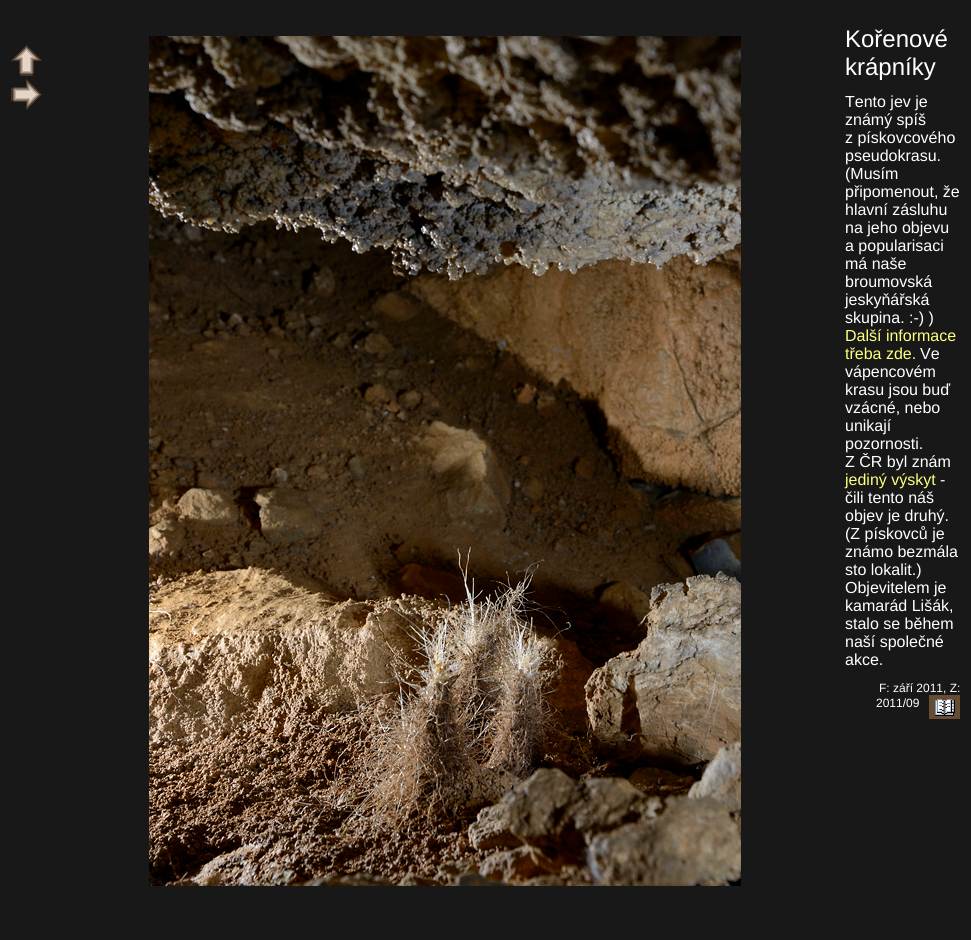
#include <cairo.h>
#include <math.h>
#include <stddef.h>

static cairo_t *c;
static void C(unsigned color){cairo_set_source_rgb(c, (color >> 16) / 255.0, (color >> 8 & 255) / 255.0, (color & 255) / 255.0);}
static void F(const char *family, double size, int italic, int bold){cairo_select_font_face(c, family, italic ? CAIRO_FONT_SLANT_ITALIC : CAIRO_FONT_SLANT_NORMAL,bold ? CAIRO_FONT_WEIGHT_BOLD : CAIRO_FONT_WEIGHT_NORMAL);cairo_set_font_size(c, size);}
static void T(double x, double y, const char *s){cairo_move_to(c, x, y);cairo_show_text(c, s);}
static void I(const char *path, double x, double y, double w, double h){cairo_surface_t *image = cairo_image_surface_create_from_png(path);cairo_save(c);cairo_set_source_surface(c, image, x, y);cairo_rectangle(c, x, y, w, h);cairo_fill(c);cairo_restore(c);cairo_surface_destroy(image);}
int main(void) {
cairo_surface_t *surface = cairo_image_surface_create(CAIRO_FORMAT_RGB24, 971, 940);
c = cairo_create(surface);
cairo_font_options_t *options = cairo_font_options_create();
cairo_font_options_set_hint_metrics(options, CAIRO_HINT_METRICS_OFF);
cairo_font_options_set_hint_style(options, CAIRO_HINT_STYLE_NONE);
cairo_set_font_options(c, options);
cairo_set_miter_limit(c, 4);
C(0x181818);
cairo_paint(c);
I("1.png",11,45,31,31);
I("2.png",11,79,31,31);
I("3.png",149,36,592,850);
F("Liberation Sans",24,0,0);
C(0xffffff);
T(845,47,"Kořenové");
T(845,75,"krápníky");
F("Liberation Sans",16,0,0);
T(845,107,"Tento jev je");
T(845,125,"známý spíš");
T(845,143,"z pískovcového");
T(845,161,"pseudokrasu.");
T(845,179,"(Musím");
T(845,197,"připomenout, že");
T(845,215,"hlavní zásluhu");
T(845,233,"na jeho objevu");
T(845,251,"a popularisaci");
T(845,269,"má naše");
T(845,287,"broumovská");
T(845,305,"jeskyňářská");
T(845,323,"skupina. :-) )");
C(0xffff80);
T(845,341,"Další informace");
T(845,359,"třeba zde.");
C(0xffffff);
T(920,359,"Ve");
T(845,377,"vápencovém");
T(845,395,"krasu jsou buď");
T(845,413,"vzácné, nebo");
T(845,431,"unikají");
T(845,449,"pozornosti.");
T(845,467,"Z ČR byl znám");
C(0xffff80);
T(845,485,"jediný výskyt");
C(0xffffff);
T(940,485,"-");
T(845,503,"čili tento náš");
T(845,521,"objev je druhý.");
T(845,539,"(Z pískovců je");
T(845,557,"známo bezmála");
T(845,575,"sto lokalit.)");
T(845,593,"Objevitelem je");
T(845,611,"kamarád Lišák,");
T(845,629,"stalo se během");
T(845,647,"naší společné");
T(845,665,"akce.");
F("Liberation Sans",12,0,0);
T(879,692,"F: září 2011, Z:");
T(876,707,"2011/09");
I("4.png",929,695,31,24);
cairo_surface_write_to_png(surface, "o.png");
cairo_font_options_destroy(options);
cairo_destroy(c);
cairo_surface_destroy(surface);
return 0;
}
